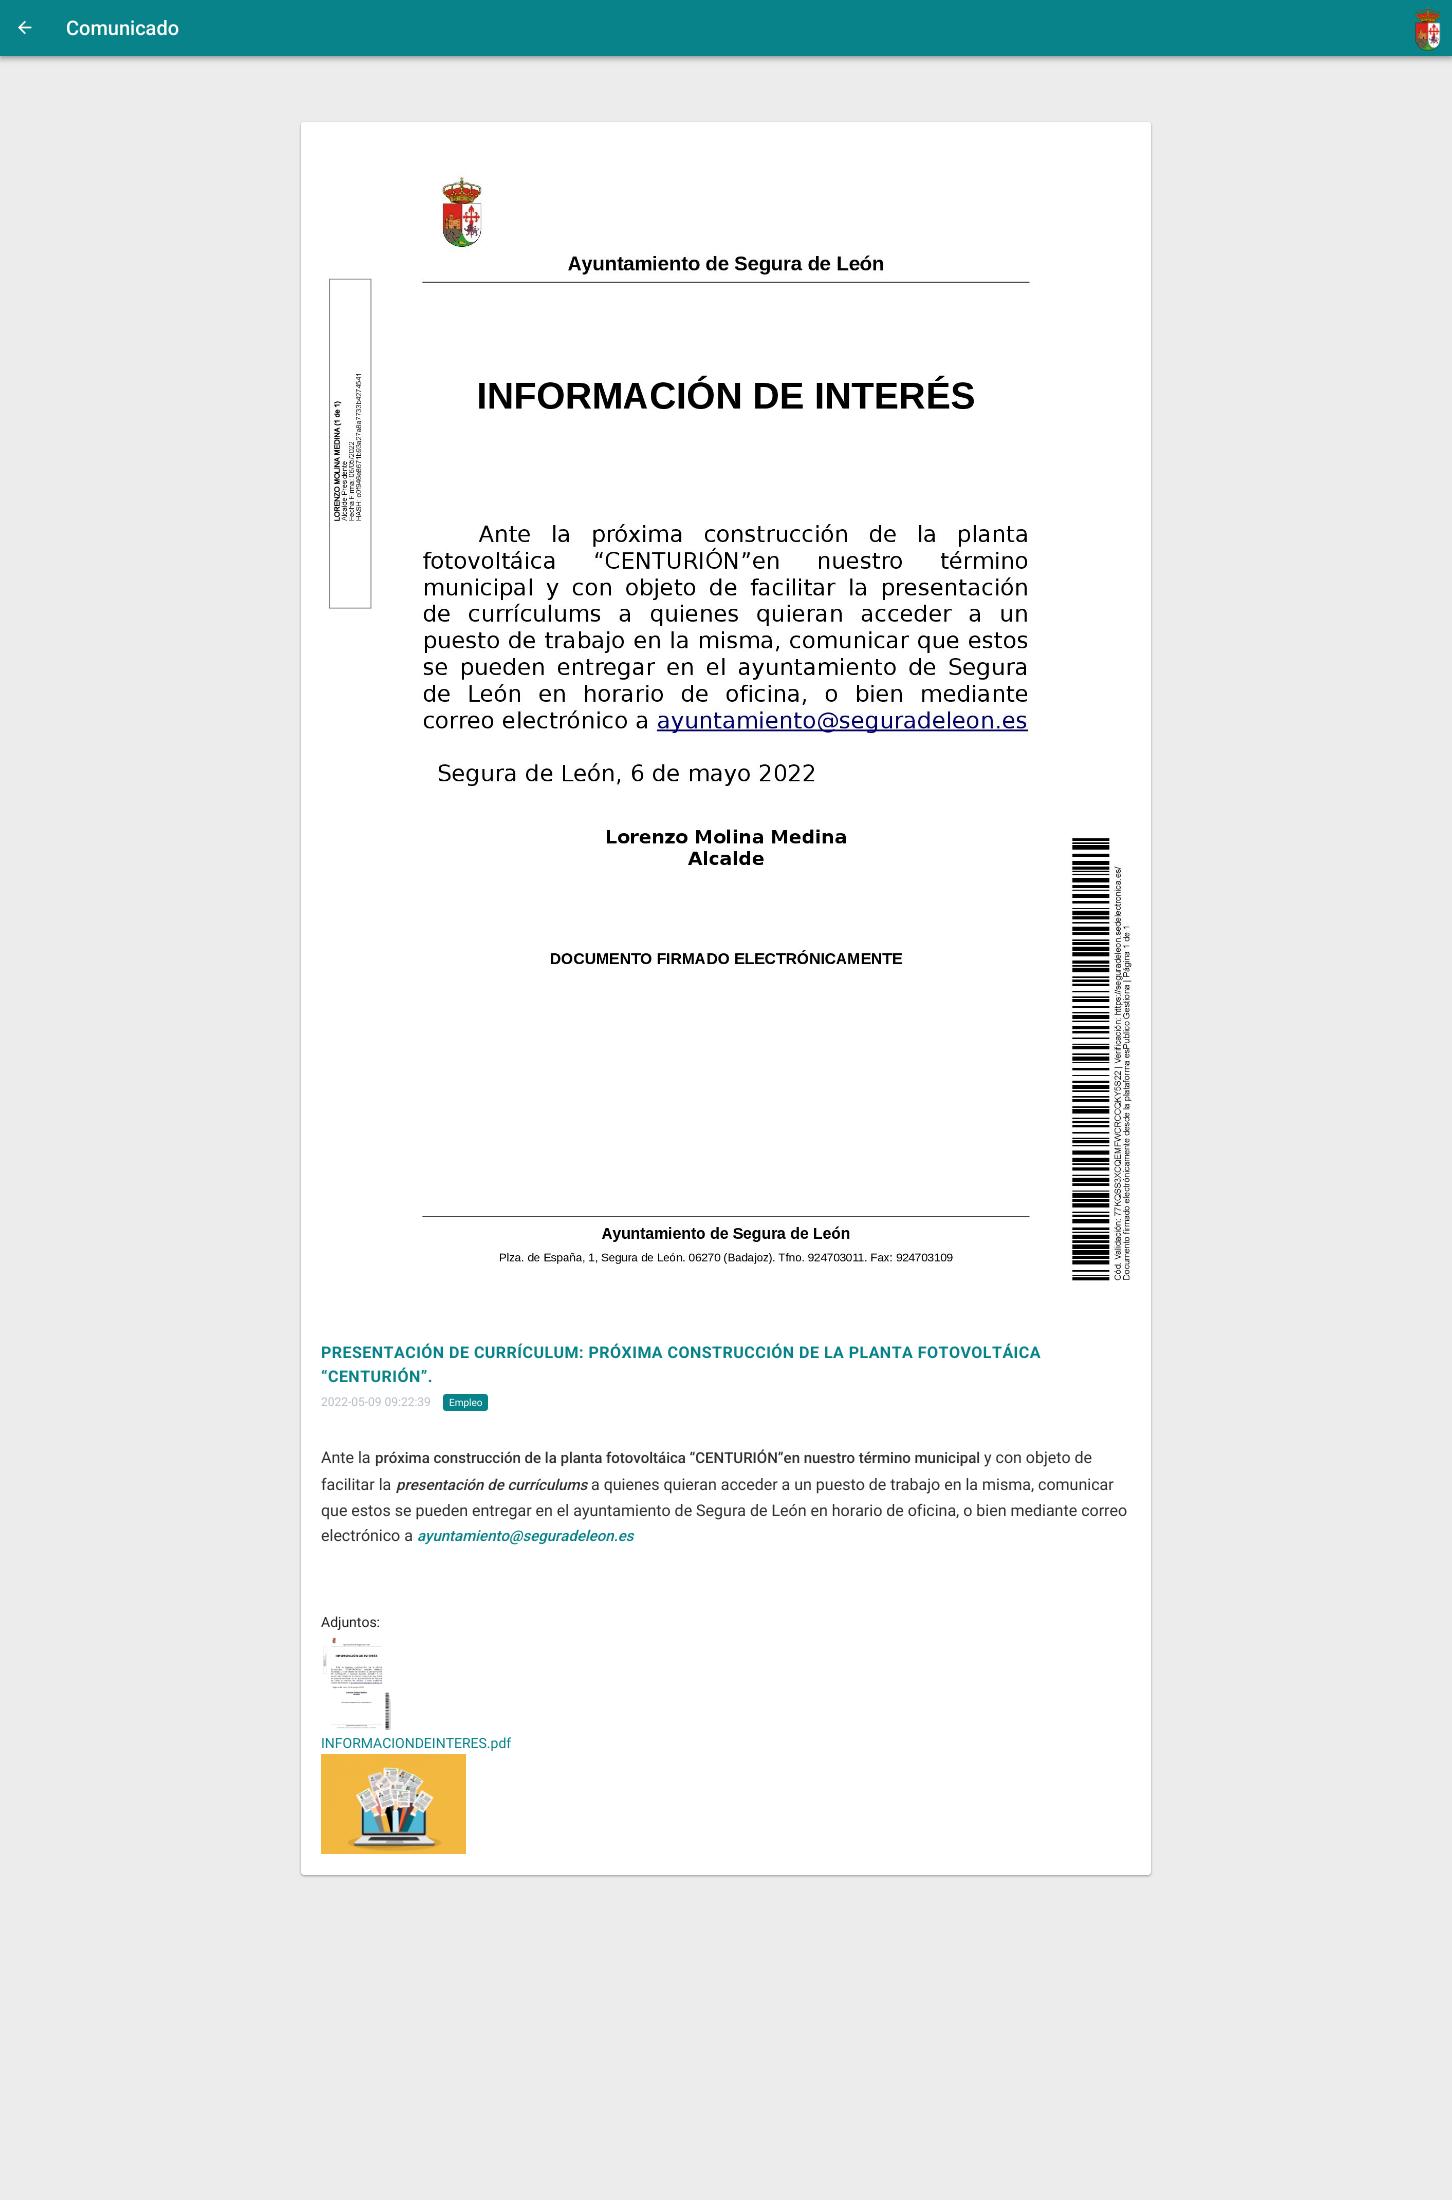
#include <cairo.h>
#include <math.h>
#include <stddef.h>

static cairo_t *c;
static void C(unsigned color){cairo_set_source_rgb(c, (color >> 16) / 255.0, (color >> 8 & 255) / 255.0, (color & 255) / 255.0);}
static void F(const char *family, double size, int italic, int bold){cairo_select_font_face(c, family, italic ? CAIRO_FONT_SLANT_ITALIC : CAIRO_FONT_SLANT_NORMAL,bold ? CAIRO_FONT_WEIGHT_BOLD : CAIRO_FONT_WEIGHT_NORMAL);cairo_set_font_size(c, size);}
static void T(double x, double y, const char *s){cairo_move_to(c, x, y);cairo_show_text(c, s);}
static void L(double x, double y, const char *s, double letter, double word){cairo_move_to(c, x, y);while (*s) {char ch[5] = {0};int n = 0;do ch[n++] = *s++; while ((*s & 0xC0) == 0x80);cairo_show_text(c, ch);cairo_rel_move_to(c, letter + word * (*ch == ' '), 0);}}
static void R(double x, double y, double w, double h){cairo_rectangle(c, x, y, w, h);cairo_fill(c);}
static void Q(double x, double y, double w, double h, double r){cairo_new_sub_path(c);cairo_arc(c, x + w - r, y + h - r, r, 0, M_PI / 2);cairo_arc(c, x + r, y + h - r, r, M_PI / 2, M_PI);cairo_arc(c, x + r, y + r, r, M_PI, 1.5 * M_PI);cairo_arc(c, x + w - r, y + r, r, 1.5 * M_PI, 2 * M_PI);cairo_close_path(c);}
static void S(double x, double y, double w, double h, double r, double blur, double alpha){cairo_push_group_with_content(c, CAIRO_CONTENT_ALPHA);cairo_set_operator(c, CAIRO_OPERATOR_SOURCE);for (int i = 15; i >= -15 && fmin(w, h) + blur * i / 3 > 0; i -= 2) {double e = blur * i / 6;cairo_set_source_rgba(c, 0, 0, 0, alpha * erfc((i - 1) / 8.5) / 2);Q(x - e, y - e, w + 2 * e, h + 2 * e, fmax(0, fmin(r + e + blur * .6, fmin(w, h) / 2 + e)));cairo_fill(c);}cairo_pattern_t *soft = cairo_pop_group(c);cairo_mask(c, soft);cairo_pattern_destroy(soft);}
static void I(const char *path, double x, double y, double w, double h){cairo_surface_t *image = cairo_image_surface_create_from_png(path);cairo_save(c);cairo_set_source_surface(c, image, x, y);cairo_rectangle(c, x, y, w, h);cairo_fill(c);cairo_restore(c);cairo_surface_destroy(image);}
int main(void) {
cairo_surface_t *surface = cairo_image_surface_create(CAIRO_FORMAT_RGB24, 1452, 2200);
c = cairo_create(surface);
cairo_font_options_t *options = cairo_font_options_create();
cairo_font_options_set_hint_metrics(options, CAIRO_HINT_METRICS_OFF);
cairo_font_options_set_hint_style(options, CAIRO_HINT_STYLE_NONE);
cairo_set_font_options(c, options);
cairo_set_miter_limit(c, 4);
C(0xececec);
cairo_paint(c);
C(0x000000);
S(0,1,1452,56,0,5,.12);
S(0,4,1452,56,0,2.5,.14);
S(1,3,1450,54,0,2,.2);
C(0x088389);
R(0,0,1452,56);
I("1.png",18,20,14,15);
F("Roboto Medium",20,0,0);
C(0xffffff);
T(66,35,"Comunicado");
I("2.png",1415,6,26,45);
C(0x000000);
S(301,123,850,1753,3,1,.24);
S(301,123,850,1753,3,1.5,.12);
I("3.png",301,122,850,1201);
C(0xffffff);
cairo_new_path(c);
cairo_move_to(c,301,1323);
cairo_line_to(c,1151,1323);
cairo_line_to(c,1151,1872);
cairo_curve_to(c,1151,1873.5,1149.5,1875,1148,1875);
cairo_line_to(c,304,1875);
cairo_curve_to(c,302.5,1875,301,1873.5,301,1872);
cairo_close_path(c);
cairo_fill(c);
F("Roboto",16,0,1);
C(0x088389);
L(321,1358,"PRESENTACIÓN DE CURRÍCULUM: PRÓXIMA CONSTRUCCIÓN DE LA PLANTA FOTOVOLTÁICA",.48,0);
L(321,1382,"“CENTURIÓN”.",.48,0);
F("Roboto",12,0,0);
C(0xb7bdc4);
T(321,1406,"2022-05-09 09:22:39");
C(0x088389);
Q(443,1394,45,17,3);
cairo_fill(c);
F("Roboto",10,0,0);
C(0xffffff);
T(449,1406,"Empleo");
F("Roboto",16,0,0);
C(0x313131);
T(321,1463,"Ante la");
F("Roboto Medium",15,0,0);
T(375,1463,"próxima construcción de la planta fotovoltáica “CENTURIÓN”en nuestro término municipal");
F("Roboto",16,0,0);
T(984,1463,"y con objeto de");
T(321,1490,"facilitar la");
F("Roboto Medium",15,1,0);
T(396,1490,"presentación de currículums");
F("Roboto",16,0,0);
T(591,1490,"a quienes quieran acceder a un puesto de trabajo en la misma, comunicar");
T(321,1516,"que estos se pueden entregar en el ayuntamiento de Segura de León en horario de oficina, o bien mediante correo");
T(321,1541,"electrónico a");
F("Roboto Medium",15,1,0);
C(0x088389);
T(417,1541,"ayuntamiento@seguradeleon.es");
F("Roboto",14,0,0);
C(0x212121);
T(321,1627,"Adjuntos:");
I("4.png",323,1637,68,93);
C(0x088389);
T(321,1748,"INFORMACIONDEINTERES.pdf");
I("5.png",321,1754,145,100);
cairo_surface_write_to_png(surface, "o.png");
cairo_font_options_destroy(options);
cairo_destroy(c);
cairo_surface_destroy(surface);
return 0;
}
